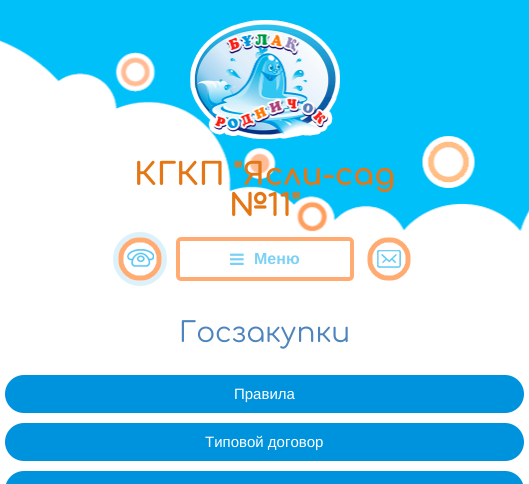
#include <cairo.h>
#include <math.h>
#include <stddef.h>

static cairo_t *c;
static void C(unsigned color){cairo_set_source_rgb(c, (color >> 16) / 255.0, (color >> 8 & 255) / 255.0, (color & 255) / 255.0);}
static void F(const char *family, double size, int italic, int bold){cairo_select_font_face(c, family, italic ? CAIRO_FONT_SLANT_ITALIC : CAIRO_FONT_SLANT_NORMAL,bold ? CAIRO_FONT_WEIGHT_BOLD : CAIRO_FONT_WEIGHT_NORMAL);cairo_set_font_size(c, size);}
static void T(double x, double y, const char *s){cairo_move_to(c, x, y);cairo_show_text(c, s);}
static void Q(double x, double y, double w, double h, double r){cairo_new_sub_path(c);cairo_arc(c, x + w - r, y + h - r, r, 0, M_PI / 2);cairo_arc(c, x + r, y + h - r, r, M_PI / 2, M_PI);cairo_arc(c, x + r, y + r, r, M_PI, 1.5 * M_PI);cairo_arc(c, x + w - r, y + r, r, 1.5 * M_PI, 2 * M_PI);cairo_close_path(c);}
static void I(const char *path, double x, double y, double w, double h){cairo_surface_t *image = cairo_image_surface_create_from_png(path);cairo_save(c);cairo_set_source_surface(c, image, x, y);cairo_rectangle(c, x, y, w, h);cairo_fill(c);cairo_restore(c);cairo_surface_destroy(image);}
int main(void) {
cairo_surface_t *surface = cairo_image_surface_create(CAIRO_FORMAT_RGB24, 529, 484);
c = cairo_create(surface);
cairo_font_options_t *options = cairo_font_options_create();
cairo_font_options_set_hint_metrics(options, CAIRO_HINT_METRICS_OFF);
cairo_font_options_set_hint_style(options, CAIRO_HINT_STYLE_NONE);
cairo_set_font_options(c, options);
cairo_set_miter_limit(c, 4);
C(0xffffff);
cairo_paint(c);
I("1.png",0,0,529,232);
I("2.png",190,20,150,119);
F("Comfortaa",31,0,1);
C(0xe47715);
T(134,185,"КГКП \"Ясли-сад");
T(229,216,"№11\"");
I("3.png",113,232,54,54);
Q(178,239,174,40,3);
C(0xffab71);
cairo_set_line_width(c,4);
cairo_stroke(c);
I("4.png",230,253,14,12);
F("Liberation Sans",16,0,1);
C(0x7ad1f5);
T(254,264,"Меню");
I("5.png",367,237,44,44);
F("Comfortaa",28,0,0);
C(0x4d84bd);
T(179,342,"Госзакупки");
C(0x0093dd);
Q(5,375,519,38,19);
cairo_fill(c);
F("Liberation Sans",15,0,0);
C(0xffffff);
T(234,399,"Правила");
C(0x0093dd);
Q(5,423,519,38,19);
cairo_fill(c);
C(0xffffff);
T(205,447,"Типовой договор");
C(0x0093dd);
Q(5,471,519,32,19);
cairo_fill(c);
cairo_surface_write_to_png(surface, "o.png");
cairo_font_options_destroy(options);
cairo_destroy(c);
cairo_surface_destroy(surface);
return 0;
}
